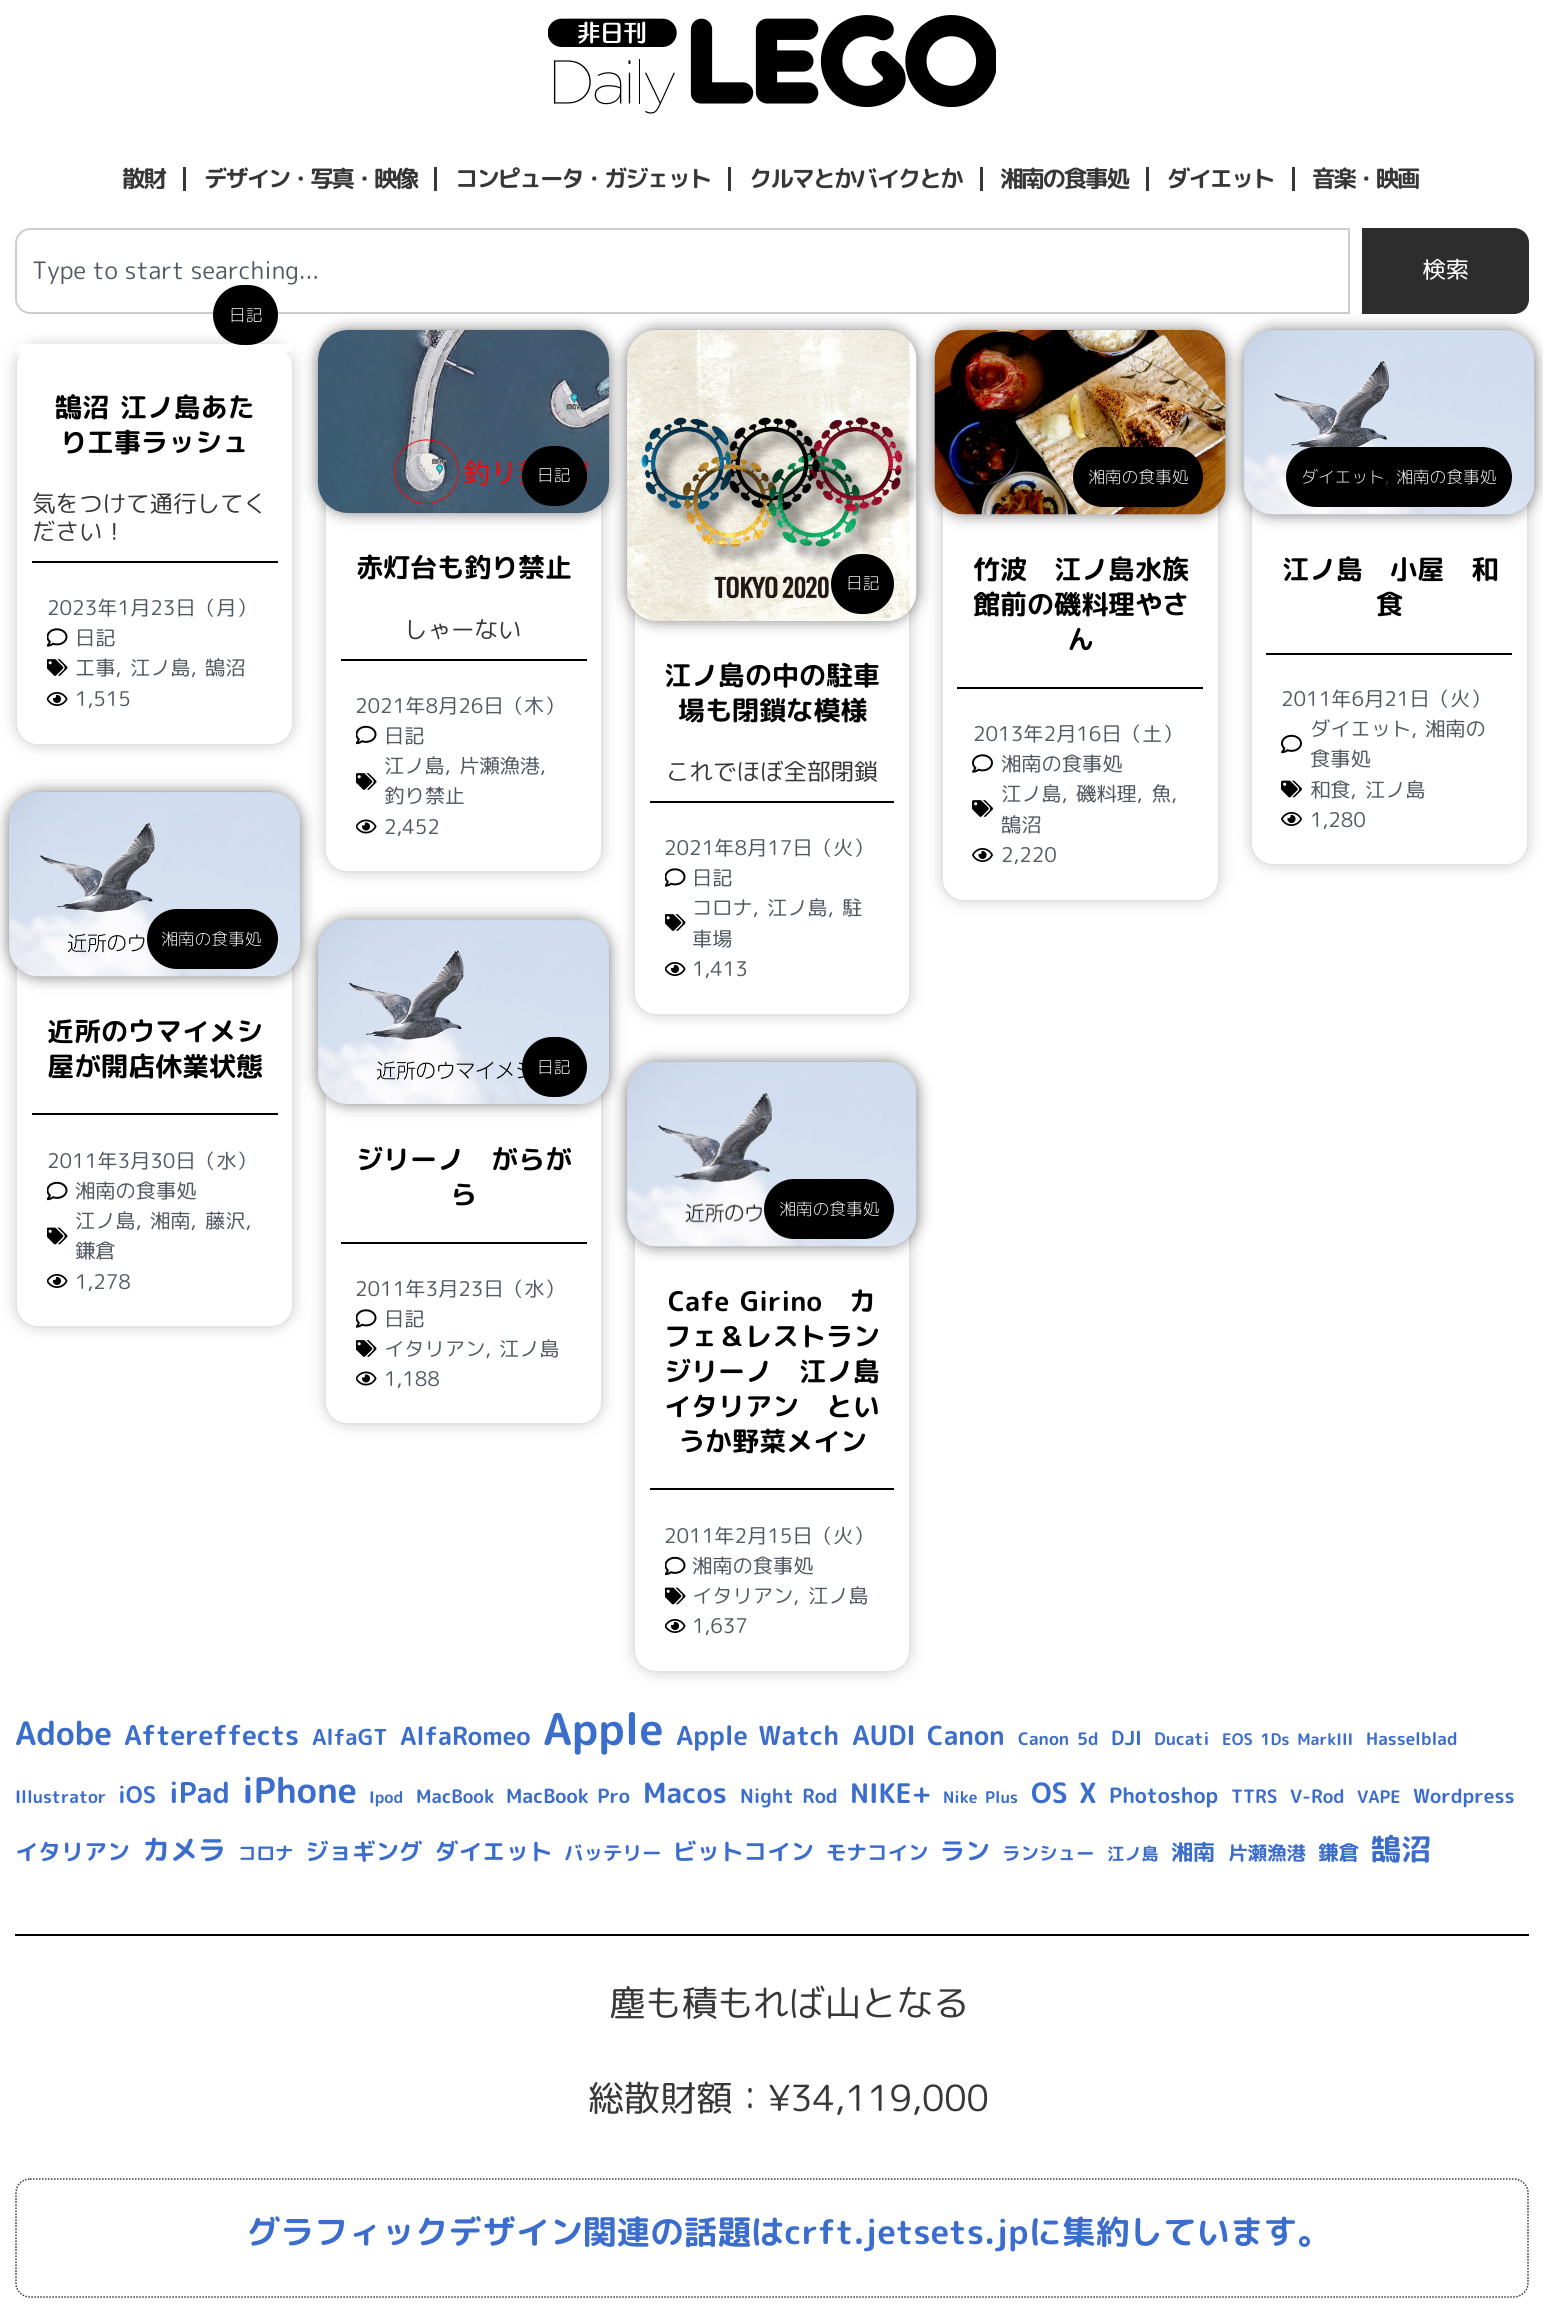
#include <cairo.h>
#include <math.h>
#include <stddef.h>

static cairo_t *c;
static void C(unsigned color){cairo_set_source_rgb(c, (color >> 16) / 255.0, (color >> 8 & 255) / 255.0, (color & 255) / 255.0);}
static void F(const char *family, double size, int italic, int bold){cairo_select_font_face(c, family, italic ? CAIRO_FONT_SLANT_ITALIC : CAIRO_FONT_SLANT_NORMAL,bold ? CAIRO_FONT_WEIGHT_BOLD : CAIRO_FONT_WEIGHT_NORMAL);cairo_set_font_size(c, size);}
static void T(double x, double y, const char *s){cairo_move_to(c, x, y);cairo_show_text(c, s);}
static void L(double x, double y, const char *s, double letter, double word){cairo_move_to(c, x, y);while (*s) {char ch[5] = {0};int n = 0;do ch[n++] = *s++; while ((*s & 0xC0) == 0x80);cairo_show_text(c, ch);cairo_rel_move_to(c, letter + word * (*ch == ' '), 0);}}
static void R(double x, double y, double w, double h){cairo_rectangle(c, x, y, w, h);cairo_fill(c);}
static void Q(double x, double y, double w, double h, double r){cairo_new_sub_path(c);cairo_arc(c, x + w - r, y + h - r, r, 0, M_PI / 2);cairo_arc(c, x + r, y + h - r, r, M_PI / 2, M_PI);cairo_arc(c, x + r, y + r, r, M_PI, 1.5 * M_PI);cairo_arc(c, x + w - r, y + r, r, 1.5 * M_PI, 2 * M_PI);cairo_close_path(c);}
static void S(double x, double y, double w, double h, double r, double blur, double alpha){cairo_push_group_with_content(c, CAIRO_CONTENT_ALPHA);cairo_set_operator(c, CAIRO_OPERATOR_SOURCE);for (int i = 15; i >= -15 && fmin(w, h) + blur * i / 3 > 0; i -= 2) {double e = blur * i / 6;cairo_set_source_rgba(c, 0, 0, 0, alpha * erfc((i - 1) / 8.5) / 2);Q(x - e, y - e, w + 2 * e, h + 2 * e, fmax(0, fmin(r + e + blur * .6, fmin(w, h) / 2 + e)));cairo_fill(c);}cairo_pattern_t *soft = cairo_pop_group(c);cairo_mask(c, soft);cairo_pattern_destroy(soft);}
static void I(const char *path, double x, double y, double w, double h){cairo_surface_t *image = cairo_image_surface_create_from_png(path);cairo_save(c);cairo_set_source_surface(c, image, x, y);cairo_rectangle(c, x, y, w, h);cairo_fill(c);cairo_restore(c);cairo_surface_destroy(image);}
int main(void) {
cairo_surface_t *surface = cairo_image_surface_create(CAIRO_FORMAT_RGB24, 1543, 2321);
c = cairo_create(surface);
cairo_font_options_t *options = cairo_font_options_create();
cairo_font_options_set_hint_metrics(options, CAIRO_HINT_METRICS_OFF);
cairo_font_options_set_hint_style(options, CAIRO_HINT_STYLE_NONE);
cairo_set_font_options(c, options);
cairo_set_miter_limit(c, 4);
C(0xffffff);
cairo_paint(c);
I("1.png",548,15,448,99);
F("Rounded Mplus 1c Bold",23.5,0,1);
C(0x373737);
L(122,187,"散財",-2.25,0);
R(183,167,3,24);
L(204,187,"デザイン・写真・映像",-2.25,0);
R(434,167,3,24);
L(455,187,"コンピュータ・ガジェット",-2.25,0);
R(728,167,3,24);
L(749,187,"クルマとかバイクとか",-2.25,0);
R(980,167,3,24);
L(1000,187,"湘南の食事処",-2.25,0);
R(1146,167,3,24);
L(1167,187,"ダイエット",-2.25,0);
R(1292,167,3,24);
L(1312,187,"音楽・映画",-2.25,0);
cairo_new_path(c);
cairo_move_to(c,30,229);
cairo_line_to(c,1349,229);
cairo_line_to(c,1349,313);
cairo_line_to(c,30,313);
cairo_curve_to(c,22.5,313,16,306.5,16,299);
cairo_line_to(c,16,243);
cairo_curve_to(c,16,235.5,22.5,229,30,229);
cairo_close_path(c);
C(0xcdcdcd);
cairo_stroke(c);
F("Rounded Mplus 1c",24,0,0);
C(0x515962);
T(32,279,"Type to start searching...");
C(0x2d2d2d);
cairo_new_path(c);
cairo_move_to(c,1362,228);
cairo_line_to(c,1514,228);
cairo_curve_to(c,1522.5,228,1529,234.5,1529,243);
cairo_line_to(c,1529,299);
cairo_curve_to(c,1529,307.5,1522.5,314,1514,314);
cairo_line_to(c,1362,314);
cairo_close_path(c);
cairo_fill(c);
F("Rounded Mplus 1c",23.5,0,0);
C(0xffffff);
T(1422,278,"検索");
cairo_save(c);
cairo_set_fill_rule(c,CAIRO_FILL_RULE_EVEN_ODD);
cairo_new_path(c);
cairo_move_to(c,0,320);
cairo_line_to(c,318,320);
cairo_line_to(c,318,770);
cairo_line_to(c,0,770);
cairo_close_path(c);
cairo_move_to(c,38,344);
cairo_line_to(c,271,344);
cairo_curve_to(c,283.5,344,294,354.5,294,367);
cairo_line_to(c,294,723);
cairo_curve_to(c,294,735.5,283.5,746,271,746);
cairo_line_to(c,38,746);
cairo_curve_to(c,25.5,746,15,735.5,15,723);
cairo_line_to(c,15,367);
cairo_curve_to(c,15,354.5,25.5,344,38,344);
cairo_close_path(c);
cairo_clip(c);
C(0x000000);
S(15,344,279,402,23,7.5,.17);
cairo_restore(c);
Q(16,345,277,400,22);
C(0xe4e4e4);
cairo_stroke(c);
I("2.png",17,344,276,17);
C(0x000000);
Q(213,285,65,60,30);
cairo_fill(c);
F("Rounded Mplus 1c Light",16.75,0,0);
C(0xffffff);
T(229,321,"日記");
F("Rounded Mplus 1c Bold",27,0,1);
C(0x000000);
L(55,417,"鵠沼 江ノ島あた",0,3);
T(60,452,"り工事ラッシュ");
F("Rounded Mplus 1c",23.5,0,0);
C(0x373737);
T(32,512,"気をつけて通行してく");
T(32,540,"ださい！");
C(0x000000);
R(32,561,246,2);
F("Rounded Mplus 1c",20.25,0,0);
C(0x515962);
T(47,615,"2023年1月23日（月）");
I("3.png",47,628,21,19);
T(75,645,"日記");
I("4.png",47,659,21,17);
T(75,675,"工事,");
T(130,675,"江ノ島,");
T(205,675,"鵠沼");
I("5.png",47,692,21,14);
T(75,706,"1,515");
cairo_save(c);
cairo_set_fill_rule(c,CAIRO_FILL_RULE_EVEN_ODD);
cairo_new_path(c);
cairo_move_to(c,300,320);
cairo_line_to(c,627,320);
cairo_line_to(c,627,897);
cairo_line_to(c,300,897);
cairo_close_path(c);
cairo_move_to(c,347,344);
cairo_line_to(c,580,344);
cairo_curve_to(c,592.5,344,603,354.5,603,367);
cairo_line_to(c,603,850);
cairo_curve_to(c,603,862.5,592.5,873,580,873);
cairo_line_to(c,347,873);
cairo_curve_to(c,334.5,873,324,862.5,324,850);
cairo_line_to(c,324,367);
cairo_curve_to(c,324,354.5,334.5,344,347,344);
cairo_close_path(c);
cairo_clip(c);
C(0x000000);
S(324,344,279,529,23,7.5,.17);
cairo_restore(c);
Q(325,345,277,527,22);
C(0xe4e4e4);
cairo_stroke(c);
C(0x000000);
S(318,330,291,183,30,7.5,.5);
I("6.png",318,330,291,183);
C(0x000000);
Q(522,446,65,60,30);
cairo_fill(c);
F("Rounded Mplus 1c Light",16.75,0,0);
C(0xffffff);
T(537,481,"日記");
F("Rounded Mplus 1c Bold",27,0,1);
C(0x000000);
T(356,577,"赤灯台も釣り禁止");
F("Rounded Mplus 1c",23.5,0,0);
C(0x373737);
T(404,638,"しゃーない");
C(0x000000);
R(341,659,246,2);
F("Rounded Mplus 1c",20.25,0,0);
C(0x515962);
T(355,713,"2021年8月26日（木）");
I("7.png",356,725,21,20);
T(384,743,"日記");
I("4.png",356,773,21,17);
T(384,773,"江ノ島,");
T(459,773,"片瀬漁港,");
T(384,803,"釣り禁止");
I("8.png",356,819,21,15);
T(384,834,"2,452");
cairo_save(c);
cairo_set_fill_rule(c,CAIRO_FILL_RULE_EVEN_ODD);
cairo_new_path(c);
cairo_move_to(c,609,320);
cairo_line_to(c,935,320);
cairo_line_to(c,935,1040);
cairo_line_to(c,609,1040);
cairo_close_path(c);
cairo_move_to(c,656,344);
cairo_line_to(c,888,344);
cairo_curve_to(c,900.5,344,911,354.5,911,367);
cairo_line_to(c,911,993);
cairo_curve_to(c,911,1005.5,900.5,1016,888,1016);
cairo_line_to(c,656,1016);
cairo_curve_to(c,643.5,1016,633,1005.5,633,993);
cairo_line_to(c,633,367);
cairo_curve_to(c,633,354.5,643.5,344,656,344);
cairo_close_path(c);
cairo_clip(c);
C(0x000000);
S(633,344,278,672,23,7.5,.17);
cairo_restore(c);
Q(634,345,276,670,22);
C(0xe4e4e4);
cairo_stroke(c);
C(0x000000);
S(627,330,290,291,30,7.5,.5);
I("9.png",627,330,290,291);
C(0x000000);
Q(831,554,63,60,30);
cairo_fill(c);
F("Rounded Mplus 1c Light",16.75,0,0);
C(0xffffff);
T(846,589,"日記");
F("Rounded Mplus 1c Bold",27,0,1);
C(0x000000);
T(664,685,"江ノ島の中の駐車");
T(678,720,"場も閉鎖な模様");
F("Rounded Mplus 1c",23.5,0,0);
C(0x373737);
T(666,780,"これでほぼ全部閉鎖");
C(0x000000);
R(650,801,244,2);
F("Rounded Mplus 1c",20.25,0,0);
C(0x515962);
T(664,855,"2021年8月17日（火）");
I("3.png",665,868,21,19);
T(692,885,"日記");
I("4.png",665,914,21,17);
T(692,915,"コロナ,");
T(767,915,"江ノ島,");
T(842,915,"駐");
T(692,946,"車場");
I("5.png",665,962,21,14);
T(692,976,"1,413");
cairo_save(c);
cairo_set_fill_rule(c,CAIRO_FILL_RULE_EVEN_ODD);
cairo_new_path(c);
cairo_move_to(c,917,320);
cairo_line_to(c,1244,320);
cairo_line_to(c,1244,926);
cairo_line_to(c,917,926);
cairo_close_path(c);
cairo_move_to(c,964,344);
cairo_line_to(c,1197,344);
cairo_curve_to(c,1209.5,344,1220,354.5,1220,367);
cairo_line_to(c,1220,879);
cairo_curve_to(c,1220,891.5,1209.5,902,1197,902);
cairo_line_to(c,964,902);
cairo_curve_to(c,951.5,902,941,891.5,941,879);
cairo_line_to(c,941,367);
cairo_curve_to(c,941,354.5,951.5,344,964,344);
cairo_close_path(c);
cairo_clip(c);
C(0x000000);
S(941,344,279,558,23,7.5,.17);
cairo_restore(c);
Q(942,345,277,556,22);
C(0xe4e4e4);
cairo_stroke(c);
C(0x000000);
S(935,330,291,185,30,7.5,.5);
I("10.png",934,330,292,185);
C(0x000000);
Q(1073,447,130,60,30);
cairo_fill(c);
F("Rounded Mplus 1c Light",16.75,0,0);
C(0xffffff);
T(1088,483,"湘南の食事処");
F("Rounded Mplus 1c Bold",27,0,1);
C(0x000000);
T(973,579,"竹波　江ノ島水族");
T(973,614,"館前の磯料理やさ");
T(1067,649,"ん");
R(957,687,246,2);
F("Rounded Mplus 1c",20.25,0,0);
C(0x515962);
T(973,741,"2013年2月16日（土）");
I("11.png",972,754,21,19);
T(1001,771,"湘南の食事処");
I("12.png",972,800,21,17);
T(1001,801,"江ノ島,");
T(1076,801,"磯料理,");
T(1151,801,"魚,");
T(1001,832,"鵠沼");
I("13.png",972,848,21,14);
T(1001,862,"2,220");
cairo_save(c);
cairo_set_fill_rule(c,CAIRO_FILL_RULE_EVEN_ODD);
cairo_new_path(c);
cairo_move_to(c,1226,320);
cairo_line_to(c,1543,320);
cairo_line_to(c,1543,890);
cairo_line_to(c,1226,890);
cairo_close_path(c);
cairo_move_to(c,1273,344);
cairo_line_to(c,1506,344);
cairo_curve_to(c,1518.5,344,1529,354.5,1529,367);
cairo_line_to(c,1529,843);
cairo_curve_to(c,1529,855.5,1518.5,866,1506,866);
cairo_line_to(c,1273,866);
cairo_curve_to(c,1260.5,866,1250,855.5,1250,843);
cairo_line_to(c,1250,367);
cairo_curve_to(c,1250,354.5,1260.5,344,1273,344);
cairo_close_path(c);
cairo_clip(c);
C(0x000000);
S(1250,344,279,522,23,7.5,.17);
cairo_restore(c);
Q(1251,345,277,520,22);
C(0xe4e4e4);
cairo_stroke(c);
C(0x000000);
S(1244,330,291,185,30,7.5,.5);
I("14.png",1243,330,292,185);
C(0x000000);
Q(1286,447,226,60,30);
cairo_fill(c);
F("Rounded Mplus 1c Light",16.75,0,0);
C(0xffffff);
T(1301,483,"ダイエット");
F("Rounded Mplus 1c Thin",16.75,0,0);
T(1385,483,",");
F("Rounded Mplus 1c Light",16.75,0,0);
T(1396,483,"湘南の食事処");
F("Rounded Mplus 1c Bold",27,0,1);
C(0x000000);
T(1282,579,"江ノ島　小屋　和");
T(1376,614,"食");
R(1266,653,246,2);
F("Rounded Mplus 1c",20.25,0,0);
C(0x515962);
T(1281,706,"2011年6月21日（火）");
I("15.png",1281,734,21,20);
T(1310,736,"ダイエット,");
T(1425,736,"湘南の");
T(1310,766,"食事処");
I("16.png",1281,780,21,18);
T(1310,797,"和食,");
T(1365,797,"江ノ島");
I("13.png",1281,812,21,14);
T(1310,827,"1,280");
cairo_save(c);
cairo_set_fill_rule(c,CAIRO_FILL_RULE_EVEN_ODD);
cairo_new_path(c);
cairo_move_to(c,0,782);
cairo_line_to(c,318,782);
cairo_line_to(c,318,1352);
cairo_line_to(c,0,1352);
cairo_close_path(c);
cairo_move_to(c,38,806);
cairo_line_to(c,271,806);
cairo_curve_to(c,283.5,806,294,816.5,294,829);
cairo_line_to(c,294,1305);
cairo_curve_to(c,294,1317.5,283.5,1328,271,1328);
cairo_line_to(c,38,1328);
cairo_curve_to(c,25.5,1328,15,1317.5,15,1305);
cairo_line_to(c,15,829);
cairo_curve_to(c,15,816.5,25.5,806,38,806);
cairo_close_path(c);
cairo_clip(c);
C(0x000000);
S(15,806,279,522,23,7.5,.17);
cairo_restore(c);
Q(16,807,277,520,22);
C(0xe4e4e4);
cairo_stroke(c);
C(0x000000);
S(9,792,291,185,30,7.5,.5);
I("17.png",9,792,291,185);
C(0x000000);
Q(147,909,131,60,30);
cairo_fill(c);
F("Rounded Mplus 1c Light",16.75,0,0);
C(0xffffff);
T(161,945,"湘南の食事処");
F("Rounded Mplus 1c Bold",27,0,1);
C(0x000000);
T(47,1041,"近所のウマイメシ");
T(47,1076,"屋が開店休業状態");
R(32,1113,246,2);
F("Rounded Mplus 1c",20.25,0,0);
C(0x515962);
T(47,1168,"2011年3月30日（水）");
I("7.png",47,1181,21,20);
T(75,1198,"湘南の食事処");
I("18.png",47,1227,21,18);
T(75,1228,"江ノ島,");
T(150,1228,"湘南,");
T(205,1228,"藤沢,");
T(75,1258,"鎌倉");
I("5.png",47,1274,21,14);
T(75,1289,"1,278");
cairo_save(c);
cairo_set_fill_rule(c,CAIRO_FILL_RULE_EVEN_ODD);
cairo_new_path(c);
cairo_move_to(c,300,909);
cairo_line_to(c,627,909);
cairo_line_to(c,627,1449);
cairo_line_to(c,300,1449);
cairo_close_path(c);
cairo_move_to(c,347,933);
cairo_line_to(c,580,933);
cairo_curve_to(c,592.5,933,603,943.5,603,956);
cairo_line_to(c,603,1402);
cairo_curve_to(c,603,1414.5,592.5,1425,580,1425);
cairo_line_to(c,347,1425);
cairo_curve_to(c,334.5,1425,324,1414.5,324,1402);
cairo_line_to(c,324,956);
cairo_curve_to(c,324,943.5,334.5,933,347,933);
cairo_close_path(c);
cairo_clip(c);
C(0x000000);
S(324,933,279,492,23,7.5,.17);
cairo_restore(c);
Q(325,934,277,490,22);
C(0xe4e4e4);
cairo_stroke(c);
C(0x000000);
S(318,920,291,184,30,7.5,.5);
I("19.png",318,919,291,185);
C(0x000000);
Q(522,1037,65,60,30);
cairo_fill(c);
F("Rounded Mplus 1c Light",16.75,0,0);
C(0xffffff);
T(537,1073,"日記");
F("Rounded Mplus 1c Bold",27,0,1);
C(0x000000);
T(356,1169,"ジリーノ　がらが");
T(450,1204,"ら");
R(341,1242,246,2);
F("Rounded Mplus 1c",20.25,0,0);
C(0x515962);
T(355,1296,"2011年3月23日（水）");
I("3.png",356,1309,21,19);
T(384,1326,"日記");
I("4.png",356,1340,21,17);
T(384,1356,"イタリアン,");
T(499,1356,"江ノ島");
I("8.png",356,1371,21,15);
T(384,1386,"1,188");
cairo_save(c);
cairo_set_fill_rule(c,CAIRO_FILL_RULE_EVEN_ODD);
cairo_new_path(c);
cairo_move_to(c,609,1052);
cairo_line_to(c,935,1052);
cairo_line_to(c,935,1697);
cairo_line_to(c,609,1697);
cairo_close_path(c);
cairo_move_to(c,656,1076);
cairo_line_to(c,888,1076);
cairo_curve_to(c,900.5,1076,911,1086.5,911,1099);
cairo_line_to(c,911,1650);
cairo_curve_to(c,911,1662.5,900.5,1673,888,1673);
cairo_line_to(c,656,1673);
cairo_curve_to(c,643.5,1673,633,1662.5,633,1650);
cairo_line_to(c,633,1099);
cairo_curve_to(c,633,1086.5,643.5,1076,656,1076);
cairo_close_path(c);
cairo_clip(c);
C(0x000000);
S(633,1076,278,597,23,7.5,.17);
cairo_restore(c);
Q(634,1077,276,595,22);
C(0xe4e4e4);
cairo_stroke(c);
C(0x000000);
S(627,1062,290,185,30,7.5,.5);
I("20.png",627,1062,290,185);
C(0x000000);
Q(764,1179,130,60,30);
cairo_fill(c);
F("Rounded Mplus 1c Light",16.75,0,0);
C(0xffffff);
T(779,1215,"湘南の食事処");
F("Rounded Mplus 1c Bold",27,0,1);
C(0x000000);
L(668,1311,"Cafe Girino　カ",0,3);
T(664,1346,"フェ＆レストラン");
T(664,1381,"ジリーノ　江ノ島");
T(664,1416,"イタリアン　とい");
T(678,1451,"うか野菜メイン");
R(650,1488,244,2);
F("Rounded Mplus 1c",20.25,0,0);
C(0x515962);
T(664,1543,"2011年2月15日（火）");
I("7.png",665,1556,21,20);
T(692,1573,"湘南の食事処");
I("18.png",665,1587,21,18);
T(692,1603,"イタリアン,");
T(808,1603,"江ノ島");
I("5.png",665,1619,21,14);
T(692,1633,"1,637");
F("Rounded Mplus 1c Bold",32.5,0,1);
C(0x3b6dcc);
T(15,1745,"Adobe");
F("Rounded Mplus 1c Bold",27.25,0,1);
T(124,1745,"Aftereffects");
F("Rounded Mplus 1c Bold",22,0,1);
T(312,1745,"AlfaGT");
F("Rounded Mplus 1c Bold",25,0,1);
T(400,1745,"AlfaRomeo");
F("Rounded Mplus 1c Bold",44,0,1);
T(543,1745,"Apple");
F("Rounded Mplus 1c Bold",26.25,0,1);
L(676,1745,"Apple Watch",0,3);
F("Rounded Mplus 1c Bold",27,0,1);
T(852,1745,"AUDI");
F("Rounded Mplus 1c Bold",26.25,0,1);
T(927,1745,"Canon");
F("Rounded Mplus 1c Bold",17.25,0,1);
L(1018,1745,"Canon 5d",0,3);
F("Rounded Mplus 1c Bold",19.5,0,1);
T(1111,1745,"DJI");
F("Rounded Mplus 1c Bold",17.25,0,1);
T(1154,1745,"Ducati");
F("Rounded Mplus 1c Bold",16,0,1);
L(1222,1745,"EOS 1Ds MarkIII",0,3);
F("Rounded Mplus 1c Bold",17.25,0,1);
T(1366,1745,"Hasselblad");
T(15,1803,"Illustrator");
F("Rounded Mplus 1c Bold",23,0,1);
T(118,1803,"iOS");
F("Rounded Mplus 1c Bold",28.5,0,1);
T(169,1803,"iPad");
F("Rounded Mplus 1c Bold",35,0,1);
T(242,1803,"iPhone");
F("Rounded Mplus 1c Bold",16,0,1);
T(369,1803,"Ipod");
F("Rounded Mplus 1c Bold",18.5,0,1);
T(416,1803,"MacBook");
F("Rounded Mplus 1c Bold",19.5,0,1);
L(506,1803,"MacBook Pro",0,3);
F("Rounded Mplus 1c Bold",28,0,1);
T(643,1803,"Macos");
F("Rounded Mplus 1c Bold",19.5,0,1);
L(740,1803,"Night Rod",0,3);
F("Rounded Mplus 1c Bold",27,0,1);
T(850,1803,"NIKE+");
F("Rounded Mplus 1c Bold",16,0,1);
L(943,1803,"Nike Plus",0,3);
F("Rounded Mplus 1c Bold",28,0,1);
L(1031,1803,"OS X",0,3);
F("Rounded Mplus 1c Bold",21,0,1);
T(1109,1803,"Photoshop");
F("Rounded Mplus 1c Bold",18.5,0,1);
T(1231,1803,"TTRS");
T(1290,1803,"V-Rod");
F("Rounded Mplus 1c Bold",17.25,0,1);
T(1357,1803,"VAPE");
F("Rounded Mplus 1c Bold",19.5,0,1);
T(1413,1803,"Wordpress");
F("Rounded Mplus 1c Bold",23,0,1);
T(15,1860,"イタリアン");
F("Rounded Mplus 1c Bold",28,0,1);
T(142,1860,"カメラ");
F("Rounded Mplus 1c Bold",18.5,0,1);
T(238,1860,"コロナ");
F("Rounded Mplus 1c Bold",23.5,0,1);
T(305,1860,"ジョギング");
T(435,1860,"ダイエット");
F("Rounded Mplus 1c Bold",19.5,0,1);
T(564,1860,"バッテリー");
F("Rounded Mplus 1c Bold",23.5,0,1);
T(673,1860,"ビットコイン");
F("Rounded Mplus 1c Bold",20.5,0,1);
T(826,1860,"モナコイン");
F("Rounded Mplus 1c Bold",25,0,1);
T(940,1860,"ラン");
F("Rounded Mplus 1c Bold",18.5,0,1);
T(1002,1860,"ランシュー");
F("Rounded Mplus 1c Bold",17.25,0,1);
T(1107,1860,"江ノ島");
F("Rounded Mplus 1c Bold",22,0,1);
T(1171,1860,"湘南");
F("Rounded Mplus 1c Bold",19.5,0,1);
T(1228,1860,"片瀬漁港");
F("Rounded Mplus 1c Bold",20.5,0,1);
T(1318,1860,"鎌倉");
F("Rounded Mplus 1c Bold",30,0,1);
T(1371,1860,"鵠沼");
C(0x000000);
R(15,1934,1514,2);
F("Rounded Mplus 1c",36,0,0);
C(0x373737);
T(609,2016,"塵も積もれば山となる");
T(588,2111,"総散財額：¥34,119,000");
cairo_new_path(c);
cairo_move_to(c,30,2179);
cairo_line_to(c,1513.5,2179);
cairo_curve_to(c,1521.5,2179,1528,2185,1528,2193);
cairo_line_to(c,1528,2283);
cairo_curve_to(c,1528,2291,1521.5,2297,1513.5,2297);
cairo_line_to(c,30,2297);
cairo_curve_to(c,22,2297,16,2291,16,2283);
cairo_line_to(c,16,2193);
cairo_curve_to(c,16,2185,22,2179,30,2179);
cairo_close_path(c);
cairo_set_line_width(c,1.5);
cairo_set_dash(c,(double[]){1.5,1.5},2,0);
cairo_stroke(c);
F("Rounded Mplus 1c Bold",33.6,0,1);
C(0x3b6dcc);
T(247,2244,"グラフィックデザイン関連の話題はcrft.jetsets.jpに集約しています。");
cairo_surface_write_to_png(surface, "o.png");
cairo_font_options_destroy(options);
cairo_destroy(c);
cairo_surface_destroy(surface);
return 0;
}
